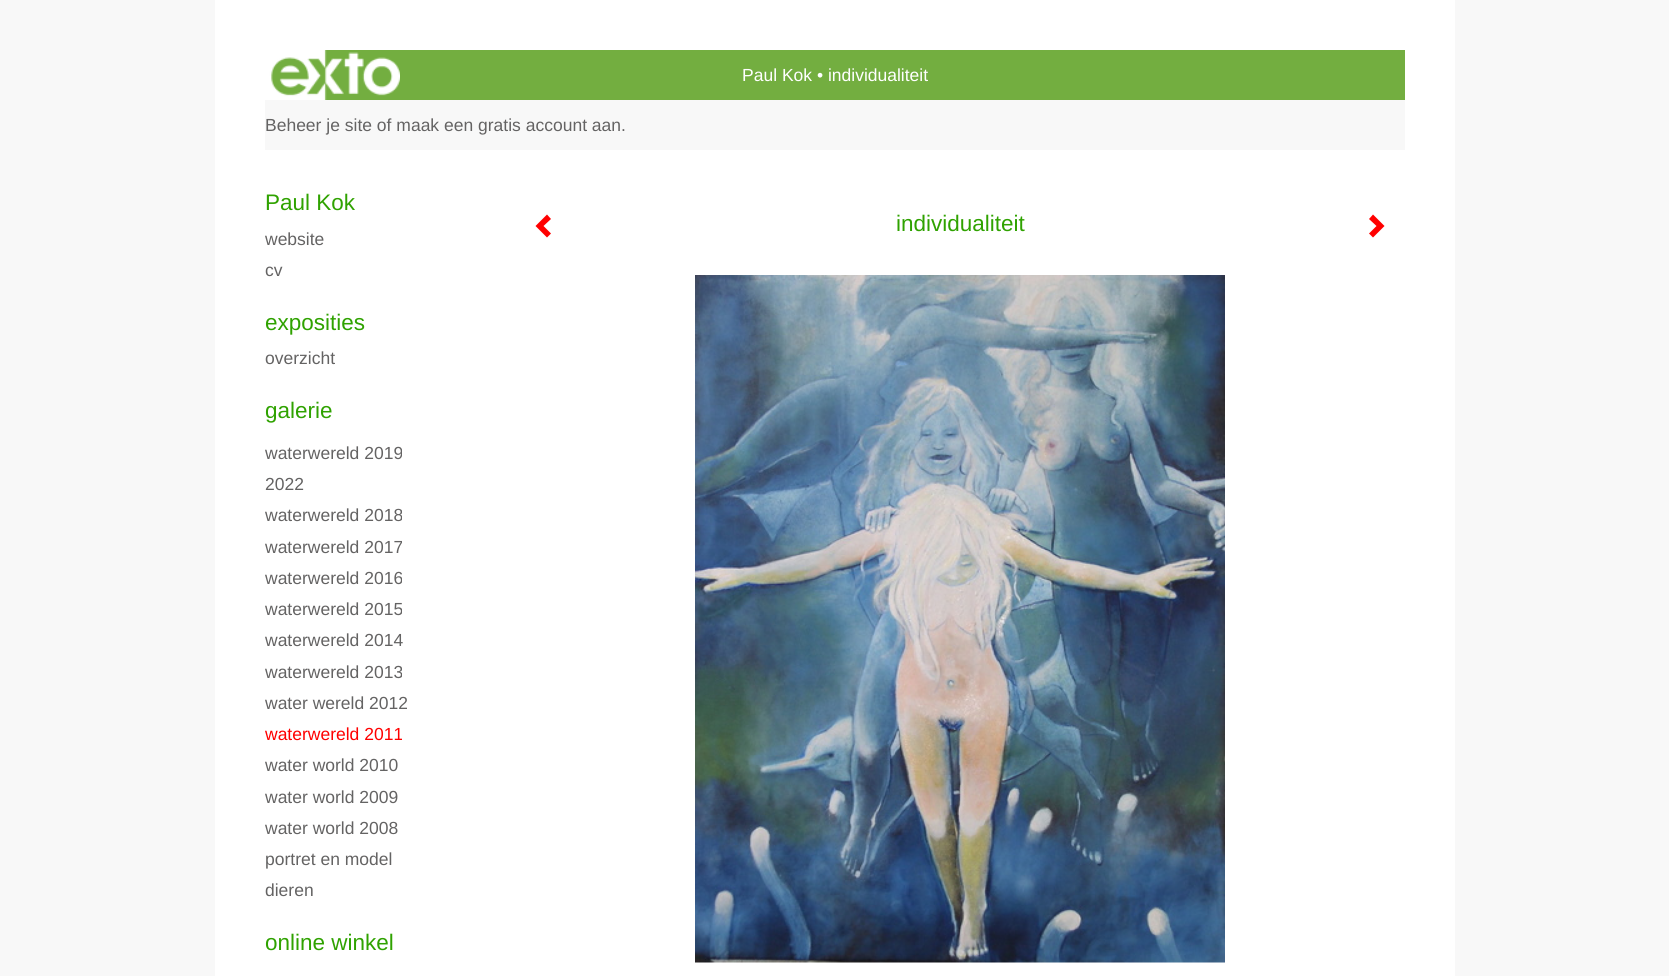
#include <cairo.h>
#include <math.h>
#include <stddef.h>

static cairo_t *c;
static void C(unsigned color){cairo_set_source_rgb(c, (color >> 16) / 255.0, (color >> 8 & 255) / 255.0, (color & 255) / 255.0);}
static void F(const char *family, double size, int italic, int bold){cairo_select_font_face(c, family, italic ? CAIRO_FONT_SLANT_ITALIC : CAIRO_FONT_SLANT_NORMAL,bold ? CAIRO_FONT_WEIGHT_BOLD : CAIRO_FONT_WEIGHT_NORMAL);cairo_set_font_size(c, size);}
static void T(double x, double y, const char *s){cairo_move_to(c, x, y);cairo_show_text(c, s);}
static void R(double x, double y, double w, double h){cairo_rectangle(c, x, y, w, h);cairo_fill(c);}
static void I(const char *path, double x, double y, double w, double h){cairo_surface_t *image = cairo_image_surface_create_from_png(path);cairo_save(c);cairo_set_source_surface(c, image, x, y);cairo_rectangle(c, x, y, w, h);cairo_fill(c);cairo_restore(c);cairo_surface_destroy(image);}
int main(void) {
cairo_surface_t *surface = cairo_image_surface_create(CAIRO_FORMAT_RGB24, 1669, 976);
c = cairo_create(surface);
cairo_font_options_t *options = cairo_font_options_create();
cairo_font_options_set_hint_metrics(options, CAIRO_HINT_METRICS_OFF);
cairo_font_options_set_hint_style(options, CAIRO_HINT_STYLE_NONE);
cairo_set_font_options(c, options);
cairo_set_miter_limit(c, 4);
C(0xf8f8f8);
cairo_paint(c);
C(0xffffff);
R(215,0,1240,976);
C(0x73ae40);
R(271,50,1134,50);
I("1.png",265,50,135,50);
F("Liberation Sans",17.5,0,0);
C(0xffffff);
T(742,81,"Paul Kok • individualiteit");
C(0xf8f8f8);
R(265,100,1140,50);
C(0x646363);
T(265,131,"Beheer je site of maak een gratis account aan.");
F("Liberation Sans",22.5,0,0);
C(0x2fa200);
T(265,210,"Paul Kok");
F("Liberation Sans",17.5,0,0);
C(0x646363);
T(265,245,"website");
T(265,276,"cv");
F("Liberation Sans",22.5,0,0);
C(0x2fa200);
T(265,330,"exposities");
F("Liberation Sans",17.5,0,0);
C(0x646363);
T(265,364,"overzicht");
F("Liberation Sans",22.5,0,0);
C(0x2fa200);
T(265,418,"galerie");
F("Liberation Sans",17.5,0,0);
C(0x646363);
T(265,459,"waterwereld 2019");
T(265,490,"2022");
T(265,521,"waterwereld 2018");
T(265,553,"waterwereld 2017");
T(265,584,"waterwereld 2016");
T(265,615,"waterwereld 2015");
T(265,646,"waterwereld 2014");
T(265,678,"waterwereld 2013");
T(265,709,"water wereld 2012");
C(0xff0000);
T(265,740,"waterwereld 2011");
C(0x646363);
T(265,771,"water world 2010");
T(265,803,"water world 2009");
T(265,834,"water world 2008");
T(265,865,"portret en model");
T(265,896,"dieren");
F("Liberation Sans",22.5,0,0);
C(0x2fa200);
T(265,950,"online winkel");
C(0xff0000);
cairo_new_path(c);
cairo_move_to(c,551,219);
cairo_line_to(c,543.5,226);
cairo_line_to(c,551,233.5);
cairo_line_to(c,547,237.5);
cairo_line_to(c,535.5,226);
cairo_line_to(c,547,214.5);
cairo_close_path(c);
cairo_fill(c);
C(0x2fa200);
T(896,231,"individualiteit");
C(0xff0000);
cairo_new_path(c);
cairo_move_to(c,1384.5,226);
cairo_line_to(c,1373,237.5);
cairo_line_to(c,1369,233.5);
cairo_line_to(c,1376.5,226);
cairo_line_to(c,1369,219);
cairo_line_to(c,1373,214.5);
cairo_close_path(c);
cairo_fill(c);
I("2.png",695,275,530,688);
cairo_surface_write_to_png(surface, "o.png");
cairo_font_options_destroy(options);
cairo_destroy(c);
cairo_surface_destroy(surface);
return 0;
}
